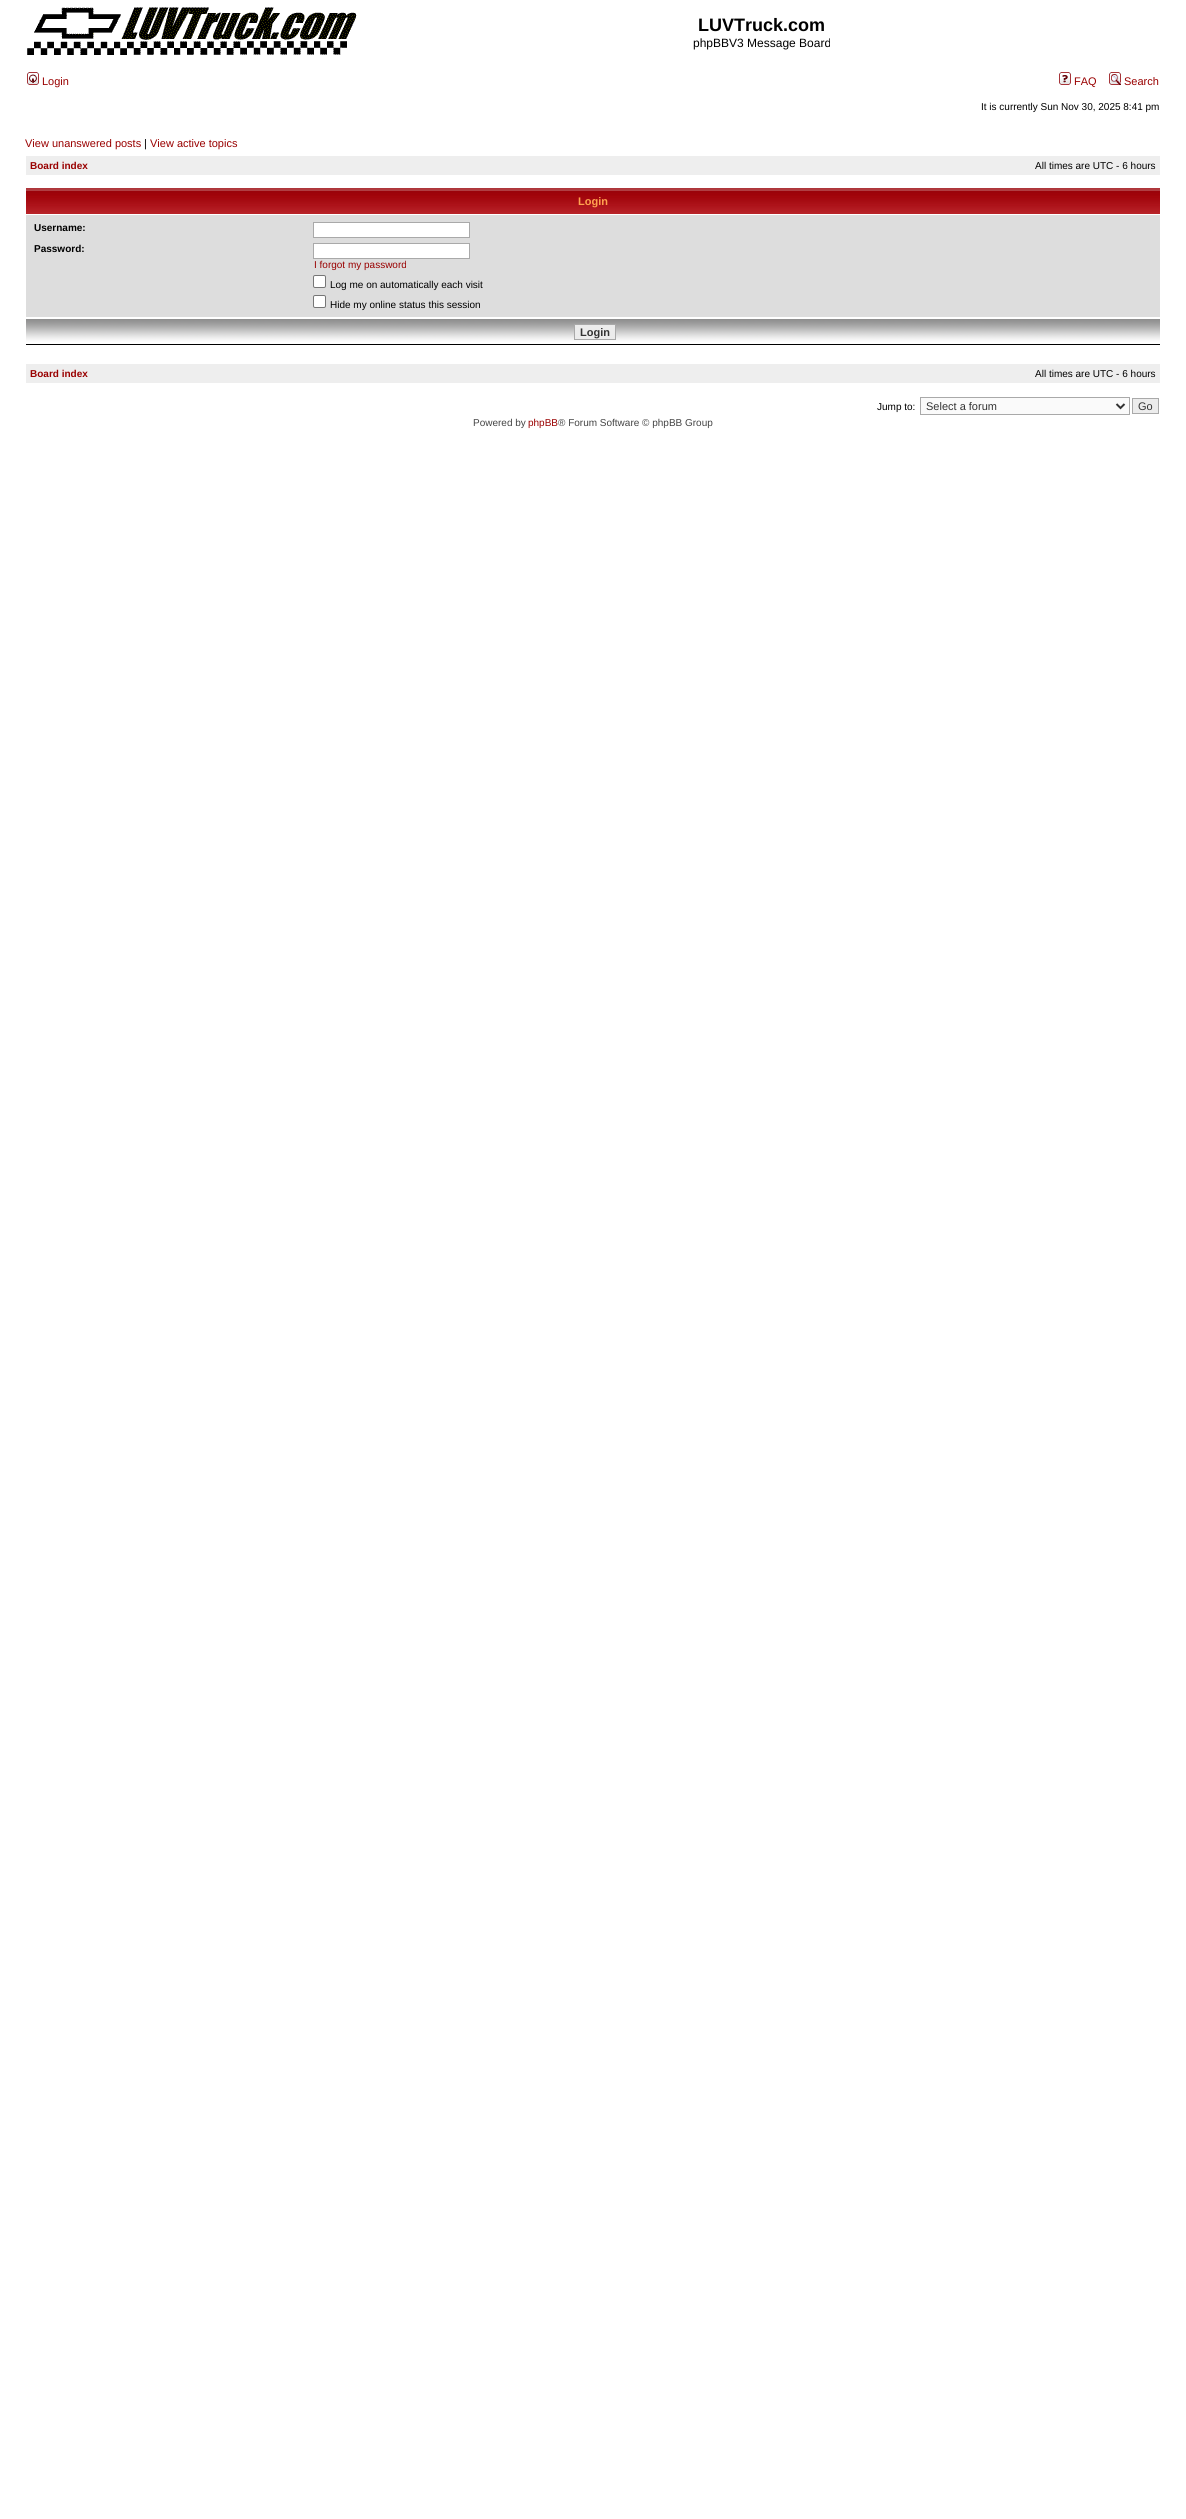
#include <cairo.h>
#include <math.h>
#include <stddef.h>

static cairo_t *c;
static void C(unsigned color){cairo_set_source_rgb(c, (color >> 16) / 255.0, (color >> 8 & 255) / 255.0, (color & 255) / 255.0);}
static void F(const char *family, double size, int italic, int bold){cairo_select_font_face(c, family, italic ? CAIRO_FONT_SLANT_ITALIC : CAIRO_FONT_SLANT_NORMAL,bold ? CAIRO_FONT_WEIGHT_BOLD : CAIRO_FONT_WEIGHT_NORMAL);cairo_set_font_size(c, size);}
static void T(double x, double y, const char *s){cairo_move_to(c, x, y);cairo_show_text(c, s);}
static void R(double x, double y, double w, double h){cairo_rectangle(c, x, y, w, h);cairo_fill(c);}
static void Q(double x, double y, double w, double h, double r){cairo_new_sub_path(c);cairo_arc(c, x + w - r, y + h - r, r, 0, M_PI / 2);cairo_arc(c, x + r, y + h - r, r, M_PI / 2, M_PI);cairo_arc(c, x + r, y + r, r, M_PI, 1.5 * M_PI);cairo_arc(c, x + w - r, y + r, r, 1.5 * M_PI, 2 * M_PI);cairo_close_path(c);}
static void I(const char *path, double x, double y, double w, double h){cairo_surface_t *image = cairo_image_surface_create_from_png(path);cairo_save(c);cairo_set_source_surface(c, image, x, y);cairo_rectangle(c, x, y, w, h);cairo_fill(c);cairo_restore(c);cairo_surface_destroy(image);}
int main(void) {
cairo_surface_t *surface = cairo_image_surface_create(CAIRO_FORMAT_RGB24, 1186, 2519);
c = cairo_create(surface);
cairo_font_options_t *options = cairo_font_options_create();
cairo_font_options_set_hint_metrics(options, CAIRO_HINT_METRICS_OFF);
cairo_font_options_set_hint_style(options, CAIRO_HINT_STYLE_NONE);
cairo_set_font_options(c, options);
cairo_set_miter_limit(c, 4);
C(0xffffff);
cairo_paint(c);
I("1.png",27,7,330,48);
F("Liberation Sans",18,0,1);
C(0x000000);
T(698,31,"LUVTruck.com");
F("Liberation Sans",12,0,0);
T(693,47,"phpBBV3 Message Board");
I("2.png",27,72,12,13);
F("Liberation Sans",11,0,0);
C(0x990000);
T(42,85,"Login");
I("3.png",1059,72,12,13);
T(1074,85,"FAQ");
I("4.png",1109,72,12,13);
T(1124,85,"Search");
F("Liberation Sans",10,0,0);
C(0x000000);
T(981,110,"It is currently Sun Nov 30, 2025 8:41 pm");
F("Liberation Sans",11,0,0);
C(0x990000);
T(25,147,"View unanswered posts");
C(0x000000);
T(144,147,"|");
C(0x990000);
T(150,147,"View active topics");
C(0xeeeeee);
R(26,156,1134,19);
F("Liberation Sans",10,0,1);
C(0x990000);
T(30,169,"Board index");
F("Liberation Sans",10,0,0);
C(0x000000);
T(1035,169,"All times are UTC - 6 hours");
I("5.png",26,188,1134,26);
F("Liberation Sans",11,0,1);
C(0xffa34f);
T(578,205,"Login");
C(0xdddddd);
R(26,215,1134,102);
F("Liberation Sans",10,0,1);
C(0x000000);
T(34,231,"Username:");
C(0xffffff);
cairo_rectangle(c,313.5,222.5,156,15);
cairo_fill_preserve(c);
C(0xa9a9a9);
cairo_set_line_width(c,1);
cairo_stroke(c);
C(0x000000);
T(34,252,"Password:");
C(0xffffff);
cairo_rectangle(c,313.5,243.5,156,15);
cairo_fill_preserve(c);
C(0xa9a9a9);
cairo_stroke(c);
F("Liberation Sans",10,0,0);
C(0x990000);
T(314,268,"I forgot my password");
C(0xffffff);
Q(313.5,275.5,12,12,1.5);
cairo_fill_preserve(c);
C(0x767676);
cairo_stroke(c);
C(0x000000);
T(330,288,"Log me on automatically each visit");
C(0xffffff);
Q(313.5,295.5,12,12,1.5);
cairo_fill_preserve(c);
C(0x767676);
cairo_stroke(c);
C(0x000000);
T(330,308,"Hide my online status this session");
I("6.png",26,318,1134,28);
C(0xececec);
cairo_rectangle(c,574.5,324.5,41,15);
cairo_fill_preserve(c);
C(0xa9a9a9);
cairo_stroke(c);
F("Liberation Sans",11,0,1);
C(0x333333);
T(580,336,"Login");
C(0xeeeeee);
R(26,364,1134,19);
F("Liberation Sans",10,0,1);
C(0x990000);
T(30,377,"Board index");
F("Liberation Sans",10,0,0);
C(0x000000);
T(1035,377,"All times are UTC - 6 hours");
T(877,410,"Jump to:");
C(0xfafafa);
cairo_rectangle(c,920.5,397.5,209,17);
cairo_fill_preserve(c);
C(0xa9a9a9);
cairo_stroke(c);
cairo_new_path(c);
cairo_move_to(c,1116.5,404);
cairo_line_to(c,1120.5,408);
cairo_line_to(c,1124.5,404);
C(0x333333);
cairo_set_line_width(c,2);
cairo_stroke(c);
F("Liberation Sans",11,0,0);
T(926,410,"Select a forum");
C(0xececec);
cairo_rectangle(c,1132.5,398.5,26,15);
cairo_fill_preserve(c);
C(0xa9a9a9);
cairo_set_line_width(c,1);
cairo_stroke(c);
C(0x333333);
T(1138,410,"Go");
F("Liberation Sans",10,0,0);
C(0x444444);
T(473,426,"Powered by");
C(0x990000);
T(528,426,"phpBB");
C(0x444444);
T(558,426,"® Forum Software © phpBB Group");
cairo_surface_write_to_png(surface, "o.png");
cairo_font_options_destroy(options);
cairo_destroy(c);
cairo_surface_destroy(surface);
return 0;
}
